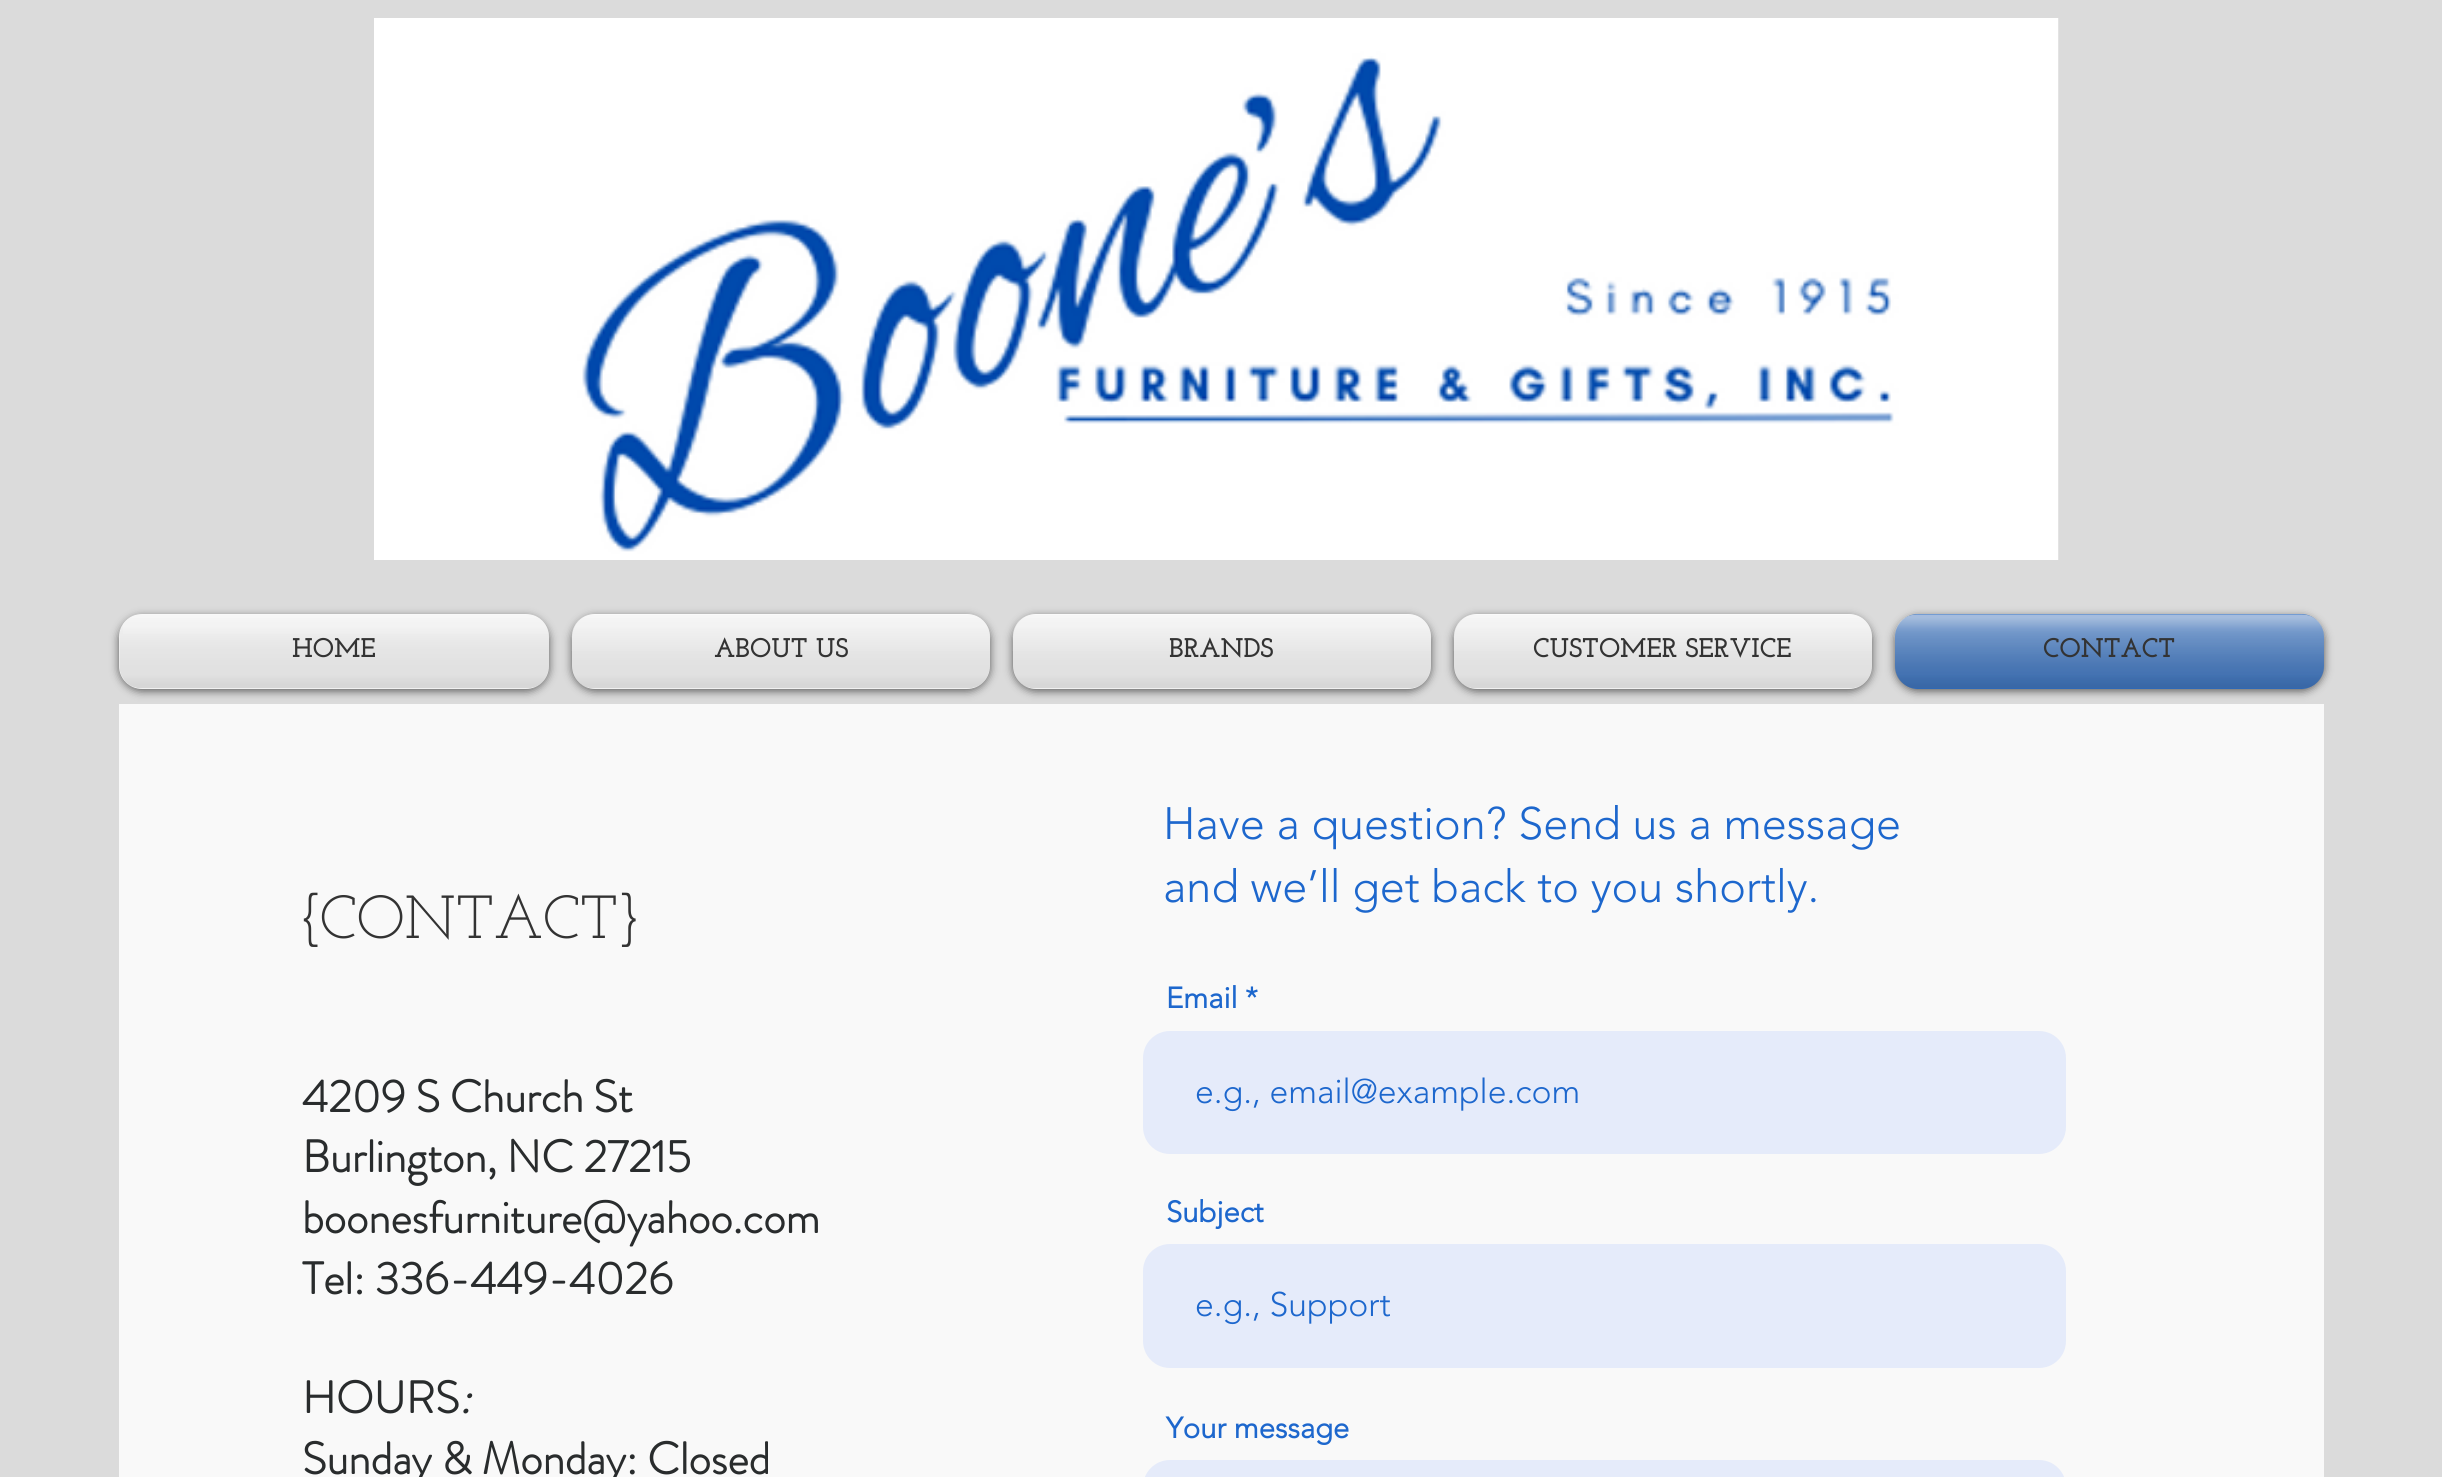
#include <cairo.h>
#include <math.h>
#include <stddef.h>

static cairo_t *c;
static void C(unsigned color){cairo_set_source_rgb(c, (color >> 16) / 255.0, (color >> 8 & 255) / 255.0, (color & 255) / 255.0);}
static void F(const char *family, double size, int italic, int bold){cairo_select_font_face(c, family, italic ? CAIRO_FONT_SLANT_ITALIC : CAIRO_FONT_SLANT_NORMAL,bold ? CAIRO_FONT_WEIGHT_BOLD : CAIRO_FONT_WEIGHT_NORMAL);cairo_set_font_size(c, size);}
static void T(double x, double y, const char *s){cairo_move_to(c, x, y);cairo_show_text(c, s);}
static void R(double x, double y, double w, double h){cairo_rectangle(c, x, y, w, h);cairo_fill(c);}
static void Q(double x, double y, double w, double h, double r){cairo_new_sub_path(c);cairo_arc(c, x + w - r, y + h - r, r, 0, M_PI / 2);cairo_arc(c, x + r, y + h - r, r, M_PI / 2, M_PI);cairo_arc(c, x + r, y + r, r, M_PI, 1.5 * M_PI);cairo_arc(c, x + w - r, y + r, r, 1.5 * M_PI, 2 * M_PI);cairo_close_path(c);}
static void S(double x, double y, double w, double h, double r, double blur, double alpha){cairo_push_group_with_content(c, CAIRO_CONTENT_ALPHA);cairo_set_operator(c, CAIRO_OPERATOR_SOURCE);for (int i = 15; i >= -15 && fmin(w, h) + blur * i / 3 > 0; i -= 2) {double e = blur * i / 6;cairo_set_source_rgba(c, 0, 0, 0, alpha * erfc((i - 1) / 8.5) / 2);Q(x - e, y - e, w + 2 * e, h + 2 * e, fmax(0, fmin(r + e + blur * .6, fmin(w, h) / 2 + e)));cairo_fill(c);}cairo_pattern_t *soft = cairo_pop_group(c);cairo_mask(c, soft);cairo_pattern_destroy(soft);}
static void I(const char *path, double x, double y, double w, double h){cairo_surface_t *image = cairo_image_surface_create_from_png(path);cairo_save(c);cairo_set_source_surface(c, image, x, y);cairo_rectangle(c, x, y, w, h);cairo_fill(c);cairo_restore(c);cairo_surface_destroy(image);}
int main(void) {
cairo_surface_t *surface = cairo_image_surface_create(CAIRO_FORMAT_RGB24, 2442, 1477);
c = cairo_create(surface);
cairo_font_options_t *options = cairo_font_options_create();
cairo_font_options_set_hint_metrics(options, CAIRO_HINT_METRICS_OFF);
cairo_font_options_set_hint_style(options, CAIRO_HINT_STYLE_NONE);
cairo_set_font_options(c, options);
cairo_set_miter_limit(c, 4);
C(0xdbdbdb);
cairo_paint(c);
I("1.png",374,18,1685,542);
C(0x000000);
S(119,617,430,74,23,4.5,.6);
C(0xf9f9f9);
Q(119,614,430,75,23);
cairo_fill(c);
I("2.png",123,615,426,19);
I("3.png",119,615,430,74);
F("Josefin Slab",27,0,1);
C(0x333333);
T(292,657,"HOME");
C(0x000000);
S(572,617,418,74,23,4.5,.6);
C(0xf9f9f9);
Q(572,614,418,75,23);
cairo_fill(c);
I("4.png",571,614,419,37);
I("5.png",571,615,419,74);
C(0x333333);
T(714,657,"ABOUT US");
C(0x000000);
S(1013,617,418,74,23,4.5,.6);
C(0xf9f9f9);
Q(1013,614,418,75,23);
cairo_fill(c);
I("6.png",1012,614,419,37);
I("7.png",1012,615,419,74);
C(0x333333);
T(1169,657,"BRANDS");
C(0x000000);
S(1454,617,418,74,23,4.5,.6);
C(0xf9f9f9);
Q(1454,614,418,75,23);
cairo_fill(c);
I("4.png",1453,614,419,37);
I("5.png",1453,615,419,74);
C(0x333333);
T(1533,657,"CUSTOMER SERVICE");
C(0x000000);
S(1895,617,429,74,23,4.5,.6);
C(0x2f6bbc);
Q(1895,614,429,75,23);
cairo_fill(c);
I("8.png",1894,614,430,74);
I("9.png",1894,615,430,74);
C(0x333333);
T(2043,657,"CONTACT");
C(0xf9f9f9);
R(119,704,2205,773);
F("Josefin Slab",60.75,0,0);
C(0x333333);
T(302,938,"{CONTACT}");
F("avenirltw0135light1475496 Light",45,0,0);
C(0x1d67cd);
T(1163,839,"Have a question? Send us a message");
T(1163,902,"and we’ll get back to you shortly.");
F("avenirltw0135light1475496",29.25,0,1);
T(1166,1008,"Email *");
C(0xe5ebfa);
Q(1143,1031,923,123,27);
cairo_fill(c);
F("avenirltw0135light1475496 Light",33.75,0,0);
C(0x1d67cd);
T(1195,1103,"e.g., email@example.com");
F("avenirltw0135light1475496",29.25,0,1);
T(1166,1222,"Subject");
C(0xe5ebfa);
Q(1143,1244,923,124,27);
cairo_fill(c);
F("avenirltw0135light1475496 Light",33.75,0,0);
C(0x1d67cd);
T(1195,1316,"e.g., Support");
F("avenirltw0135light1475496",29.25,0,1);
T(1166,1438,"Your message");
C(0xe5ebfa);
Q(1143,1460,923,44,27);
cairo_fill(c);
F("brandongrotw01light",45,0,1);
C(0x292c2d);
T(302,1112,"4209 S Church St");
T(302,1172,"Burlington, NC 27215");
T(302,1233,"boonesfurniture@yahoo.com");
T(302,1294,"Tel: 336-449-4026");
T(302,1413,"HOURS");
F("brandongrotw01light",45,1,1);
T(459,1413,":");
F("brandongrotw01light",45,0,1);
T(302,1474,"Sunday & Monday: Closed");
cairo_surface_write_to_png(surface, "o.png");
cairo_font_options_destroy(options);
cairo_destroy(c);
cairo_surface_destroy(surface);
return 0;
}
